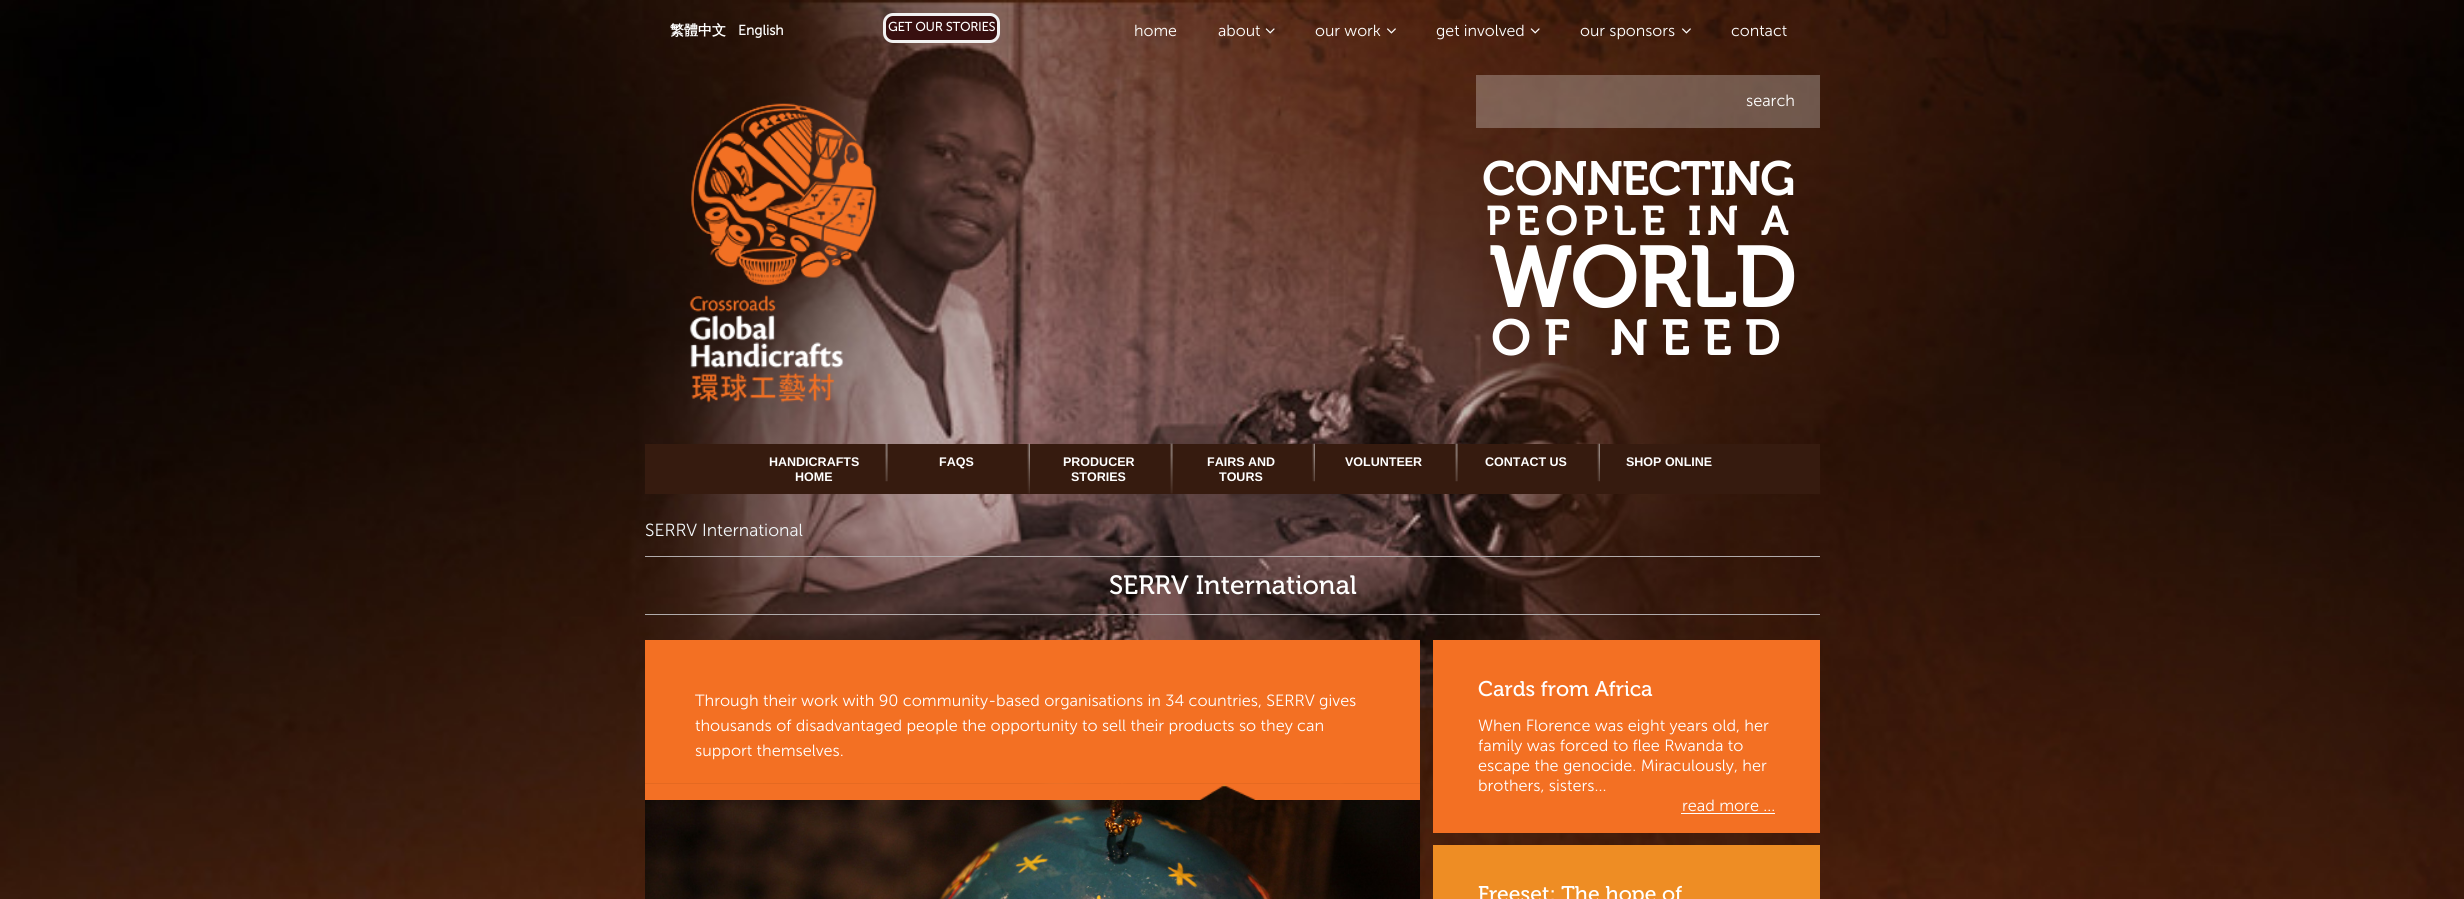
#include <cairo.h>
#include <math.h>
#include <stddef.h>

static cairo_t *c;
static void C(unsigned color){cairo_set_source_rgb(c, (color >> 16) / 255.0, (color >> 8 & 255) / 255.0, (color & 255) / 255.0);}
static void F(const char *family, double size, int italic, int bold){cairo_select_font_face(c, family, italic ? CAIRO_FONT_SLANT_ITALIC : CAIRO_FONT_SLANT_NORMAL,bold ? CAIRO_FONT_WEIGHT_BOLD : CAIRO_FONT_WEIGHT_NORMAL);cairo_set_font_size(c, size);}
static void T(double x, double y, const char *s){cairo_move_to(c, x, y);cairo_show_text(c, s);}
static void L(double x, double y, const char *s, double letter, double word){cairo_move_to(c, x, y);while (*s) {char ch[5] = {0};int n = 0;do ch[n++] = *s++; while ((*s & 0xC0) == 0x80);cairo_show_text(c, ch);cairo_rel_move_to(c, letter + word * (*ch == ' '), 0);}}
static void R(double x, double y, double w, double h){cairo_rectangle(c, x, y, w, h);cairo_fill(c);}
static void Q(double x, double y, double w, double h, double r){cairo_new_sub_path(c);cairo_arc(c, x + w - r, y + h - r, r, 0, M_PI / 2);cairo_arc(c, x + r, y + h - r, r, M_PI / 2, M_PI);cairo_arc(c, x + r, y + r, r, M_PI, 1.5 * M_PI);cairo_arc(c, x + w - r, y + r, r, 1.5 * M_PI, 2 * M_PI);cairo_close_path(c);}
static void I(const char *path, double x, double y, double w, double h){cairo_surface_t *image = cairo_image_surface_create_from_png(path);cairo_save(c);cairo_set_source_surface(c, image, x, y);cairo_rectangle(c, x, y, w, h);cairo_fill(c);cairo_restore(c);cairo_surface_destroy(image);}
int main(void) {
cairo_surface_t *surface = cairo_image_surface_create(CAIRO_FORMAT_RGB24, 2464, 899);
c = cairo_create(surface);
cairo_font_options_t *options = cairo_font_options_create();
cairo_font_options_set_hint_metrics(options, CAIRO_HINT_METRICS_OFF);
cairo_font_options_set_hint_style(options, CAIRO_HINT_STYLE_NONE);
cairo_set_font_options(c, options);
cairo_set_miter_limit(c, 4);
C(0xffffff);
cairo_paint(c);
I("1.png",0,0,2464,899);
F("WenQuanYi Zen Hei",14,0,1);
C(0xffffff);
T(670,35,"繁體中文");
F("Museo Sans",14,0,1);
T(738,35,"English");
C(0x380f0f);
Q(884.5,14.5,114,27,8.5);
cairo_fill_preserve(c);
C(0xf2f2f2);
cairo_set_line_width(c,3);
cairo_stroke(c);
F("Museo Sans",12.5,0,1);
C(0xffffff);
T(888,31,"GET OUR STORIES");
F("Museo Sans Light",16,0,0);
T(1134,36,"home");
T(1218,36,"about");
I("2.png",1265,28,10,6);
T(1315,36,"our work");
I("3.png",1387,28,9,6);
T(1436,36,"get involved");
I("4.png",1530,28,10,6);
T(1580,36,"our sponsors");
I("5.png",1682,28,9,6);
T(1731,36,"contact");
I("6.png",689,103,188,300);
cairo_set_source_rgba(c,1,1,1,0.27);
R(1476,75,344,53);
F("Museo Sans Light",16.25,0,0);
C(0xffffff);
T(1746,106,"search");
F("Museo",46.25,0,1);
T(1482,195,"CONNECTING");
F("Museo",40,0,1);
L(1486,235,"PEOPLE IN A",6.4,0);
F("Museo",84,0,1);
T(1489,307,"WORLD");
F("Museo",48.75,0,1);
L(1491,355,"OF NEED",14,0);
C(0x361b0f);
R(645,444,1175,50);
F("Liberation Sans",12.5,0,1);
C(0xffffff);
T(769,466,"HANDICRAFTS");
T(795,481,"HOME");
I("7.png",885,443,3,39);
T(939,466,"FAQS");
I("8.png",1027,443,3,51);
T(1063,466,"PRODUCER");
T(1071,481,"STORIES");
I("9.png",1170,443,3,51);
T(1207,466,"FAIRS AND");
T(1219,481,"TOURS");
I("10.png",1312,443,3,39);
T(1345,466,"VOLUNTEER");
I("11.png",1455,443,3,39);
T(1485,466,"CONTACT US");
I("12.png",1597,443,3,39);
T(1626,466,"SHOP ONLINE");
F("Museo Sans Light",17.5,0,0);
C(0xf2f7fa);
T(645,536,"SERRV International");
C(0xb1abab);
R(645,556,1175,1);
R(645,614,1175,1);
F("Museo",26.5,0,0);
C(0xffffff);
T(1109,594,"SERRV International");
C(0xf37023);
R(645,640,775,144);
F("Museo Sans Light",16.25,0,0);
C(0xffffff);
T(695,706,"Through their work with 90 community-based organisations in 34 countries, SERRV gives");
T(695,731,"thousands of disadvantaged people the opportunity to sell their products so they can");
T(695,756,"support themselves.");
I("13.png",645,783,775,116);
I("14.png",645,784,775,16);
C(0xf37023);
R(1433,640,387,193);
F("Museo",21.25,0,0);
C(0xffffff);
T(1478,696,"Cards from Africa");
F("Museo Sans Light",16.25,0,0);
T(1478,731,"When Florence was eight years old, her");
T(1478,751,"family was forced to flee Rwanda to");
T(1478,771,"escape the genocide. Miraculously, her");
T(1478,791,"brothers, sisters...");
T(1682,811,"read more ...");
R(1681,813,94,1);
C(0xee8d24);
R(1433,845,387,54);
F("Museo",21.25,0,0);
C(0xffffff);
T(1478,901,"Freeset: The hope of");
cairo_surface_write_to_png(surface, "o.png");
cairo_font_options_destroy(options);
cairo_destroy(c);
cairo_surface_destroy(surface);
return 0;
}
